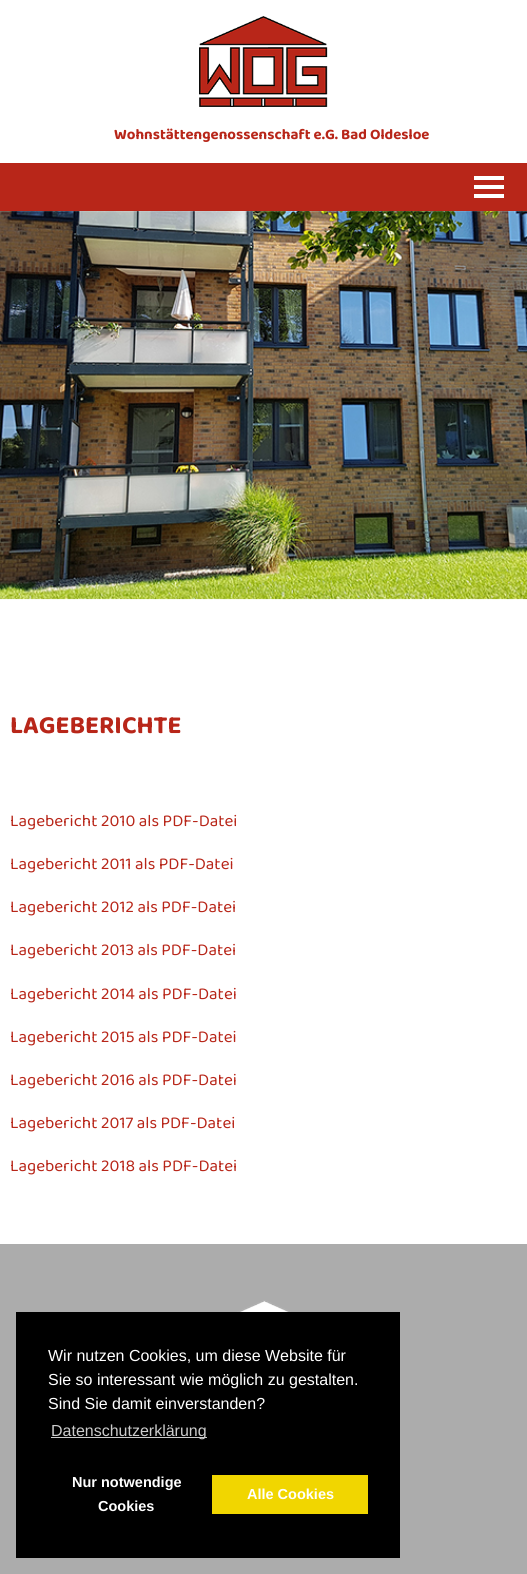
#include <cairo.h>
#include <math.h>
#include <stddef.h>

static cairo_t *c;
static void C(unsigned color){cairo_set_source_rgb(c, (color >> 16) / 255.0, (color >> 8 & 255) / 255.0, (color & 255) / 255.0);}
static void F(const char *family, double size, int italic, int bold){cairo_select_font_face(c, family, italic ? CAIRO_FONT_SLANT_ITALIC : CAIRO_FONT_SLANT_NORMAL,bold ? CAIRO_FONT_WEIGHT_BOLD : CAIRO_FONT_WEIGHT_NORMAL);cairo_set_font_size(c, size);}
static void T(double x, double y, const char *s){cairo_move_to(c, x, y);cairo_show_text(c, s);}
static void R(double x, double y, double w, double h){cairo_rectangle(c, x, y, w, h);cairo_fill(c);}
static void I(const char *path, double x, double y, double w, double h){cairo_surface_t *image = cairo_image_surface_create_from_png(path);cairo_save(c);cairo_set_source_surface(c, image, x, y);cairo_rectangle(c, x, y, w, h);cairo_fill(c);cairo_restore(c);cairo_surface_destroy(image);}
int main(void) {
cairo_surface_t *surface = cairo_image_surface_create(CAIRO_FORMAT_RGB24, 527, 1574);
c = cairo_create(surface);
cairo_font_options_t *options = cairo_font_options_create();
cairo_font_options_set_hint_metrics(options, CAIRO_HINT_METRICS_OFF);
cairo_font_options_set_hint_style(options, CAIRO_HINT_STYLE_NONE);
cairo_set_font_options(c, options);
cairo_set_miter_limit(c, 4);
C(0xffffff);
cairo_paint(c);
I("1.png",199,16,129,91);
F("Baloo 2",15,0,1);
C(0xb82619);
T(114,139,"Wohnstättengenossenschaft e.G. Bad Oldesloe");
R(0,163,527,48);
C(0xffffff);
R(474,194,30,4);
R(474,185,30,4);
R(474,176,30,4);
I("2.png",0,211,527,389);
F("Baloo 2",25.5,0,1);
C(0xb82619);
T(10,733,"LAGEBERICHTE");
F("Baloo 2",17,0,0);
T(10,826,"Lagebericht 2010 als PDF-Datei");
T(10,869,"Lagebericht 2011 als PDF-Datei");
T(10,912,"Lagebericht 2012 als PDF-Datei");
T(10,955,"Lagebericht 2013 als PDF-Datei");
T(10,999,"Lagebericht 2014 als PDF-Datei");
T(10,1042,"Lagebericht 2015 als PDF-Datei");
T(10,1085,"Lagebericht 2016 als PDF-Datei");
T(10,1128,"Lagebericht 2017 als PDF-Datei");
T(10,1171,"Lagebericht 2018 als PDF-Datei");
C(0xacacac);
R(0,1244,527,330);
I("3.png",237,1300,54,12);
C(0x000000);
R(16,1312,384,246);
F("Liberation Sans",16,0,0);
C(0xffffff);
T(48,1361,"Wir nutzen Cookies, um diese Website für");
T(48,1385,"Sie so interessant wie möglich zu gestalten.");
T(48,1409,"Sind Sie damit einverstanden?");
C(0xcccccc);
R(51,1437,156,1);
T(51,1436,"Datenschutzerklärung");
F("Liberation Sans",14.5,0,1);
C(0xffffff);
T(72,1487,"Nur notwendige");
T(98,1511,"Cookies");
C(0xf1d600);
R(212,1475,156,39);
C(0xffffff);
T(247,1499,"Alle Cookies");
cairo_surface_write_to_png(surface, "o.png");
cairo_font_options_destroy(options);
cairo_destroy(c);
cairo_surface_destroy(surface);
return 0;
}
